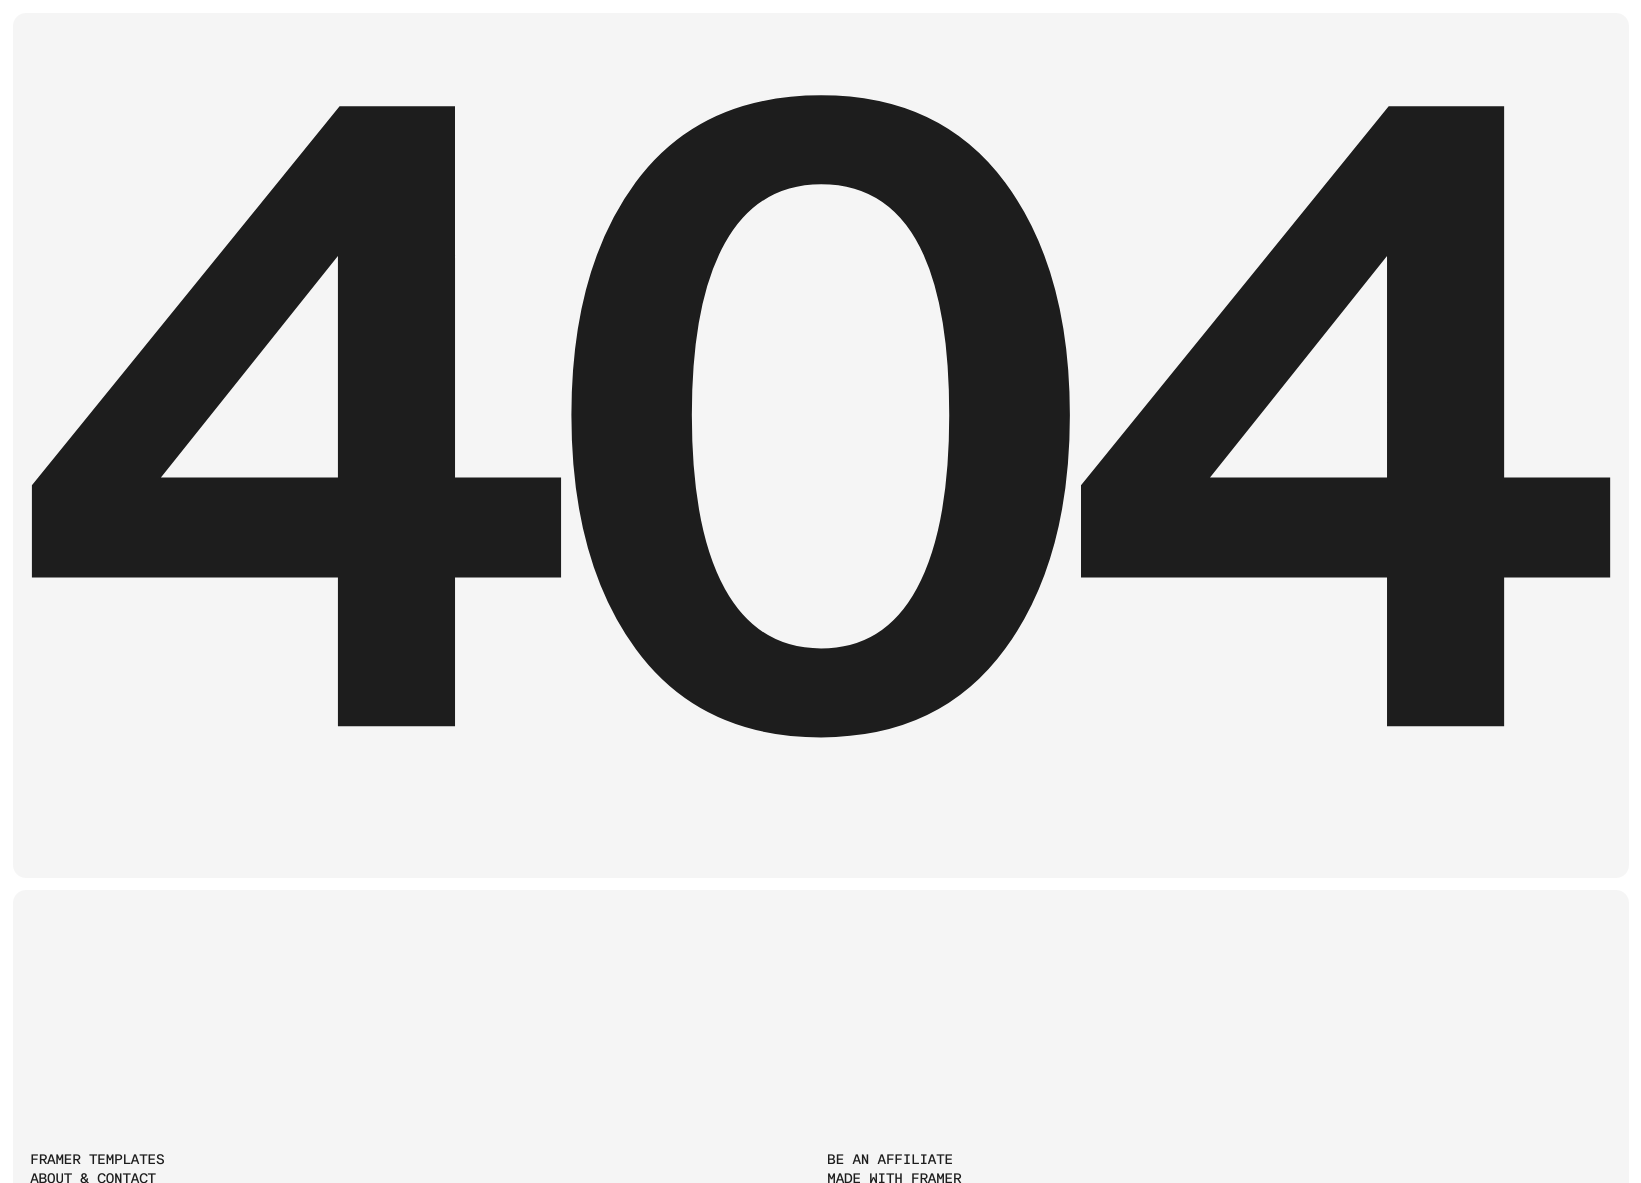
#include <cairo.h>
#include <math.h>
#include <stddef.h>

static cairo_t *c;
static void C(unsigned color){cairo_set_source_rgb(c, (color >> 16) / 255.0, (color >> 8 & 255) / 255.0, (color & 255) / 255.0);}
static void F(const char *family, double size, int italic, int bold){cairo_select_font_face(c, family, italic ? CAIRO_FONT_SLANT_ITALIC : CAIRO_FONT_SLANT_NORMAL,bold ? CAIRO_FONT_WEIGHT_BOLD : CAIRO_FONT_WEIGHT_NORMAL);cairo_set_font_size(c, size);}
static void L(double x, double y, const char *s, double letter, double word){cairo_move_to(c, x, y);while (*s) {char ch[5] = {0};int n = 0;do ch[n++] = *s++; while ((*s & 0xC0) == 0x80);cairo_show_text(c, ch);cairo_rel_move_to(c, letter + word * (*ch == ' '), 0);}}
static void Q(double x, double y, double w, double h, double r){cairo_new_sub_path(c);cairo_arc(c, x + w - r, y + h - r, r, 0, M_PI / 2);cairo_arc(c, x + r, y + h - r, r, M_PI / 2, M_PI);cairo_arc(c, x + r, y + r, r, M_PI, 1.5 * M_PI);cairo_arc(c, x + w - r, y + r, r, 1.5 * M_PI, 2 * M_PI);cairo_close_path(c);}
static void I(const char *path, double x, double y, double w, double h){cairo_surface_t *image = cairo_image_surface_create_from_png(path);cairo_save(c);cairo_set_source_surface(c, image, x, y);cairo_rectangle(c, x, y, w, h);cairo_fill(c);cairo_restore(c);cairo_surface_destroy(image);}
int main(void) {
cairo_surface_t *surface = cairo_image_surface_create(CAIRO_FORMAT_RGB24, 1641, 1183);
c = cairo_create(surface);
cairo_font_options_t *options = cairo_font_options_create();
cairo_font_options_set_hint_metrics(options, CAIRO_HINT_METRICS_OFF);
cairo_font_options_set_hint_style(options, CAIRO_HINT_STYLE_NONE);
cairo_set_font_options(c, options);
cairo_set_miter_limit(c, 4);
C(0xffffff);
cairo_paint(c);
C(0xf5f5f5);
Q(13,13,1616,865,13);
cairo_fill(c);
I("1.png",31,95,1580,643);
Q(13,890,1616,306,13);
cairo_fill(c);
F("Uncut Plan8",13.75,0,0);
C(0x1d1d1d);
L(30,1164,"FRAMER TEMPLATES",-.7,0);
L(30,1183,"ABOUT & CONTACT",-.7,0);
cairo_save(c);
cairo_rectangle(c,828,1151,783,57);
cairo_clip(c);
L(827,1164,"BE AN AFFILIATE",-.7,0);
cairo_restore(c);
L(827,1183,"MADE WITH FRAMER",-.7,0);
cairo_surface_write_to_png(surface, "o.png");
cairo_font_options_destroy(options);
cairo_destroy(c);
cairo_surface_destroy(surface);
return 0;
}
